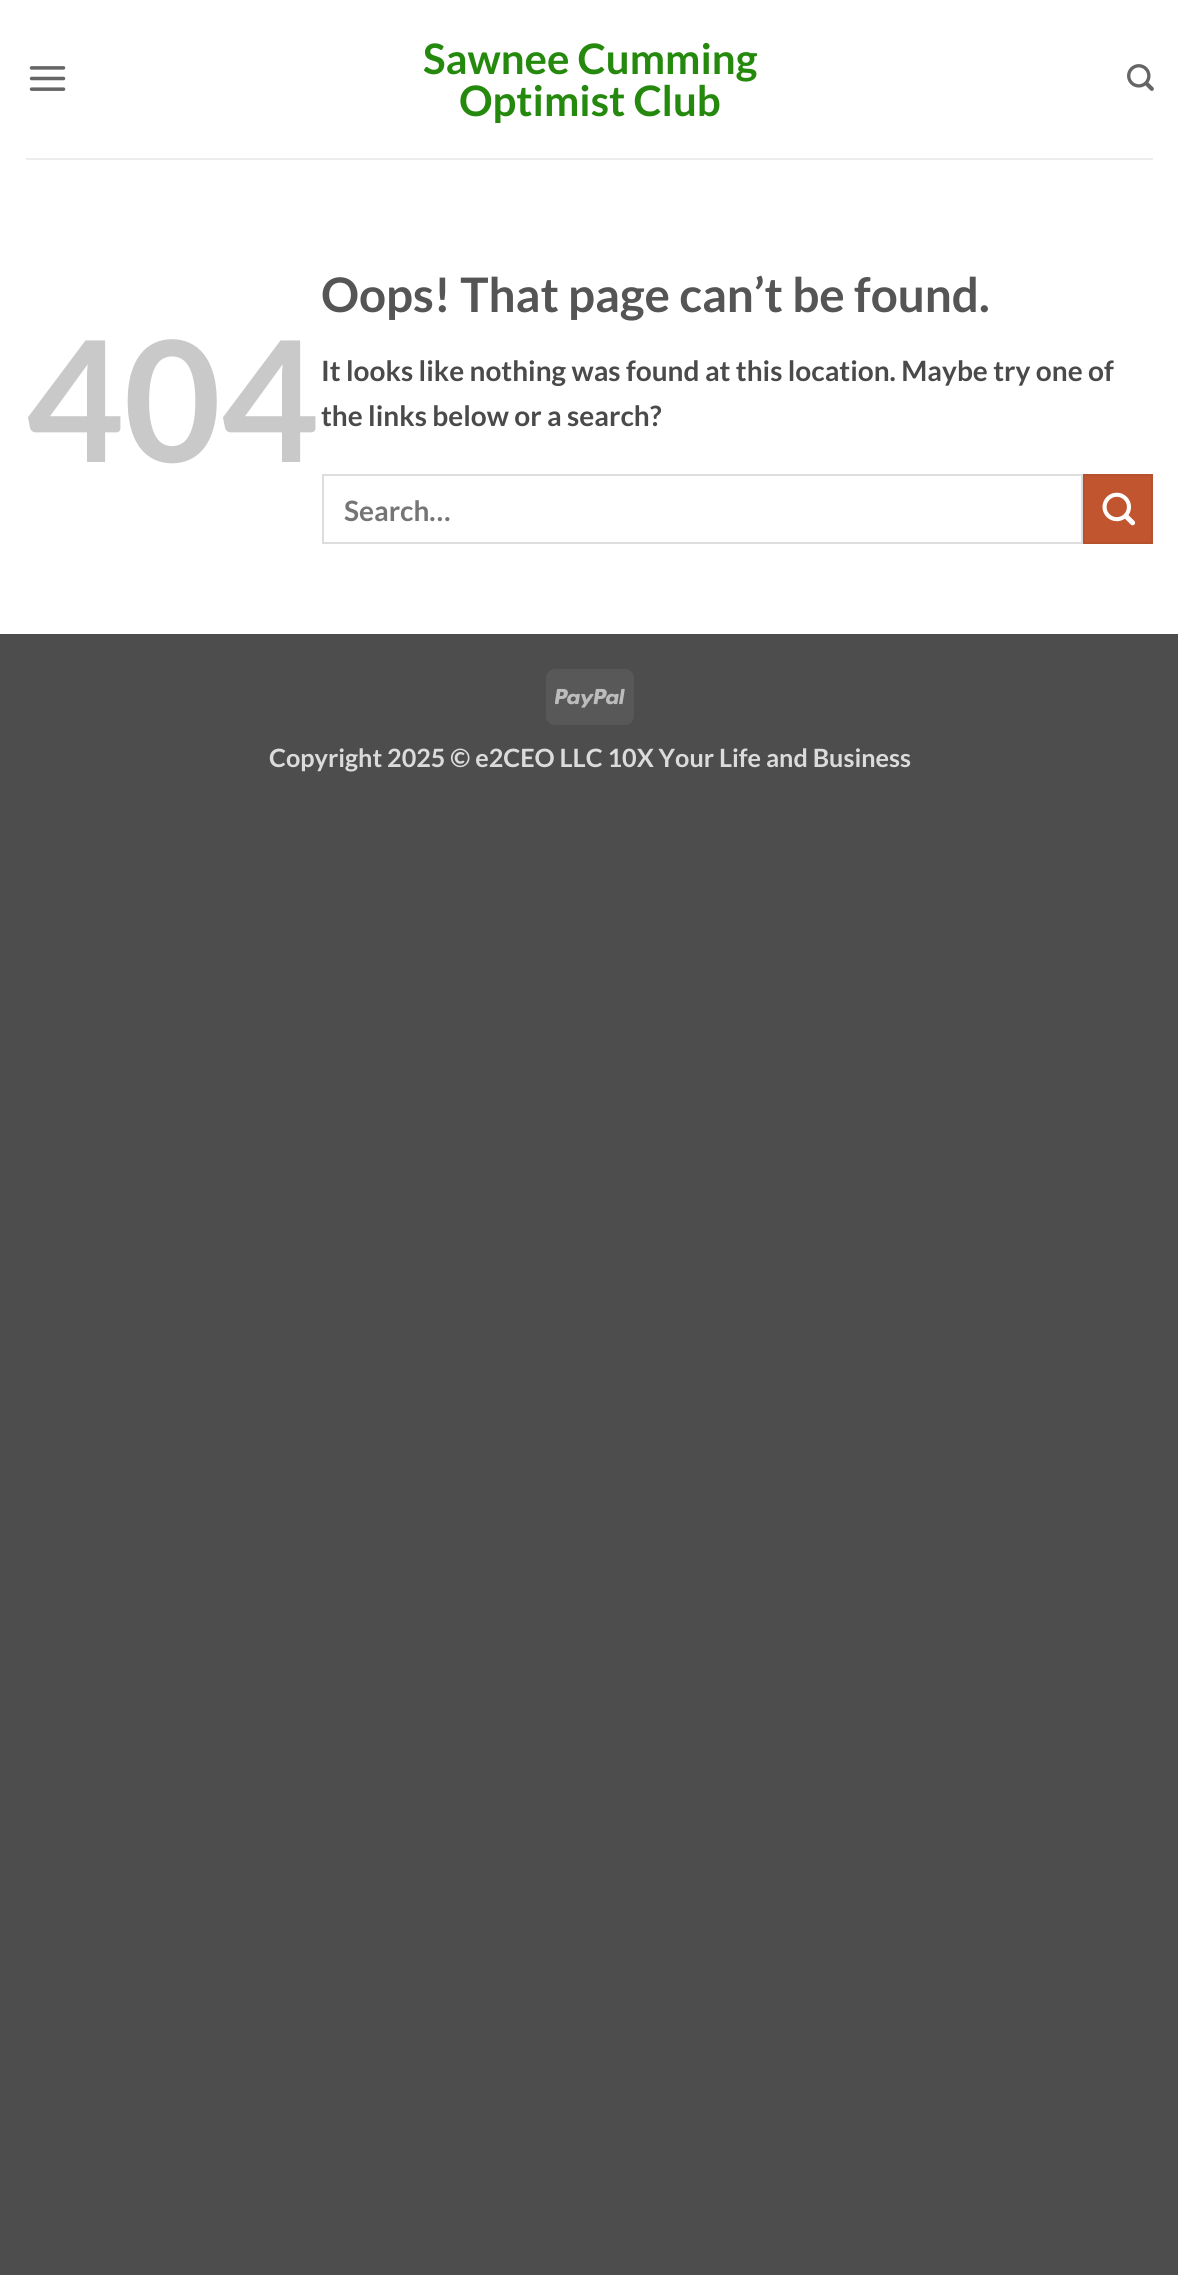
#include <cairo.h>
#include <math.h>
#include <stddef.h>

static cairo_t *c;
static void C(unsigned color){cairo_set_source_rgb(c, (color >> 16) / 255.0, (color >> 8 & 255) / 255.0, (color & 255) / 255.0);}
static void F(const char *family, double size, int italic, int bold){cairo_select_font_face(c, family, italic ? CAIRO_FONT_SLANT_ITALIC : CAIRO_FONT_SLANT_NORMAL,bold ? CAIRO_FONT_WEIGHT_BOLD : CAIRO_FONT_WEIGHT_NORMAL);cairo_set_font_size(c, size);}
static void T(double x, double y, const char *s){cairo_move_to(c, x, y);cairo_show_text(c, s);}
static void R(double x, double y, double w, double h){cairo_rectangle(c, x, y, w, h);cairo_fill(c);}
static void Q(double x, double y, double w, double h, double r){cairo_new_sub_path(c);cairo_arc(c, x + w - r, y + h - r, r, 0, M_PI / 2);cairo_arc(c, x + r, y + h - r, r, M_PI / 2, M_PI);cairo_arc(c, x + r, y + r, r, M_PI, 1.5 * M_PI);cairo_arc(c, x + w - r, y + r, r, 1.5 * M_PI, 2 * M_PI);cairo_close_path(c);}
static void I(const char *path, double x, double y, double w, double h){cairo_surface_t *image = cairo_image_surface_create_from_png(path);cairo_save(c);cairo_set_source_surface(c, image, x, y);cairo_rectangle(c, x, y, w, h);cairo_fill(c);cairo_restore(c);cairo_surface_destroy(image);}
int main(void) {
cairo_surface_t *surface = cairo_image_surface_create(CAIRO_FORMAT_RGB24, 1178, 2275);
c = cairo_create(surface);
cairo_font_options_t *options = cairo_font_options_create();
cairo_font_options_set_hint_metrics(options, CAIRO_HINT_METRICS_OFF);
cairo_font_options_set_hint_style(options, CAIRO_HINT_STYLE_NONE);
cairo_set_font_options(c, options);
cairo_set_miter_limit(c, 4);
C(0x4d4d4d);
cairo_paint(c);
C(0xffffff);
R(0,0,1178,634);
I("1.png",29,66,37,25);
F("Lato",42,0,1);
C(0x24890d);
T(423,74,"Sawnee Cumming");
T(459,116,"Optimist Club");
I("2.png",1127,64,27,27);
C(0xededed);
R(26,158,1127,2);
F("Lato",168,0,1);
C(0xc9c9c9);
T(26,462,"404");
F("Lato",47.6,0,1);
C(0x555555);
T(321,312,"Oops! That page can’t be found.");
F("Lato",28,0,1);
C(0x4a4a4a);
T(321,381,"It looks like nothing was found at this location. Maybe try one of");
T(321,426,"the links below or a search?");
cairo_rectangle(c,323,475,759,68);
C(0xdddddd);
cairo_stroke(c);
C(0x757575);
T(344,521,"Search…");
C(0xc05530);
cairo_rectangle(c,1084,475,68,68);
cairo_fill_preserve(c);
C(0xb6512e);
cairo_stroke(c);
I("3.png",1102,492,34,34);
C(0x585858);
Q(546,669,88,56,9);
cairo_fill(c);
I("4.png",555,688,70,20);
F("Lato",25.2,0,1);
C(0xdbdbdb);
T(269,767,"Copyright 2025 © e2CEO LLC 10X Your Life and Business");
cairo_surface_write_to_png(surface, "o.png");
cairo_font_options_destroy(options);
cairo_destroy(c);
cairo_surface_destroy(surface);
return 0;
}
